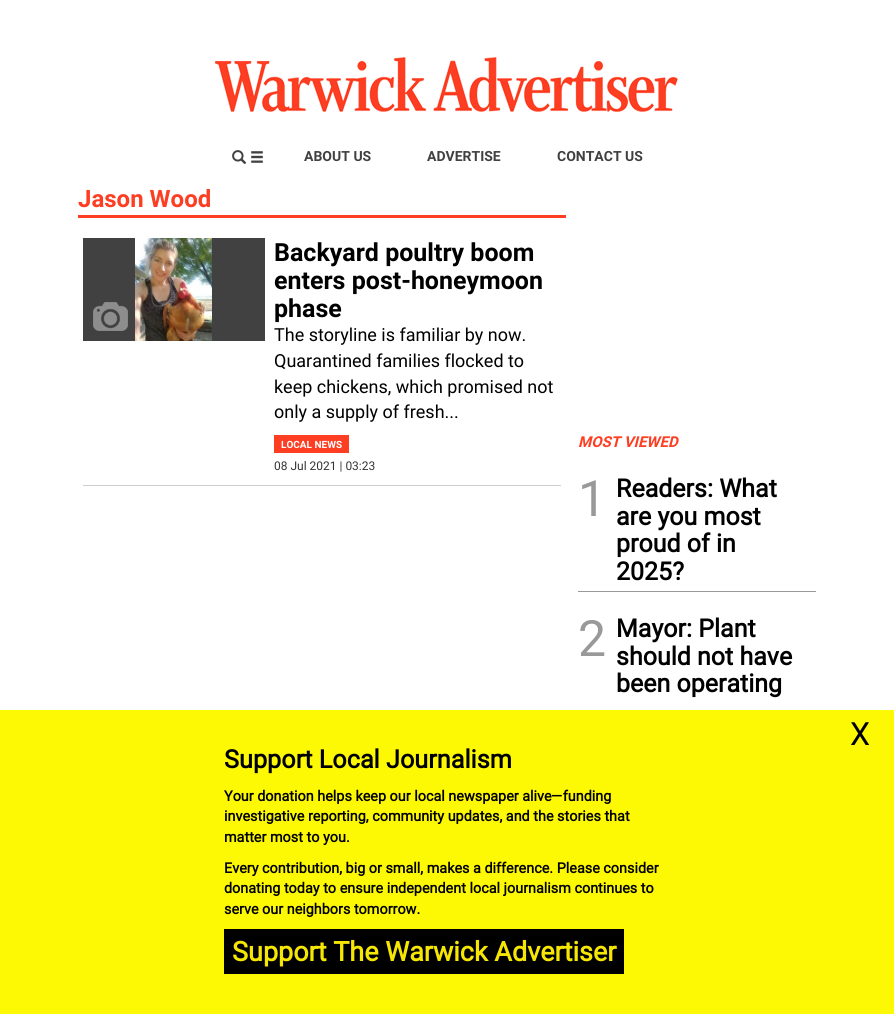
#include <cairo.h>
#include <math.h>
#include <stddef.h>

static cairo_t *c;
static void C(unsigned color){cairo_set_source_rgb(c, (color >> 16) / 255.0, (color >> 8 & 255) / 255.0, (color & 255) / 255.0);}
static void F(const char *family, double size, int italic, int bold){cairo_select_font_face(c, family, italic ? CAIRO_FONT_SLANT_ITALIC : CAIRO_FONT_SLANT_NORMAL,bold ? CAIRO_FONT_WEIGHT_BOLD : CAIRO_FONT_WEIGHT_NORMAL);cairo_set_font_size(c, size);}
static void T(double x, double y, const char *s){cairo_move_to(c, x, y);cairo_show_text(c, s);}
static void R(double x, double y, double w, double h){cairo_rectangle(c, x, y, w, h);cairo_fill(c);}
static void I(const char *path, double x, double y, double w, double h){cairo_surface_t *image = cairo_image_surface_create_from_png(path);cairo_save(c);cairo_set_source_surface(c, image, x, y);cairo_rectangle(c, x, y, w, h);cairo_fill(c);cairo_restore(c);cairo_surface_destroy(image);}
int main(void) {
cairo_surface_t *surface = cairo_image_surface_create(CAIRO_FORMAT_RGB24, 894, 1014);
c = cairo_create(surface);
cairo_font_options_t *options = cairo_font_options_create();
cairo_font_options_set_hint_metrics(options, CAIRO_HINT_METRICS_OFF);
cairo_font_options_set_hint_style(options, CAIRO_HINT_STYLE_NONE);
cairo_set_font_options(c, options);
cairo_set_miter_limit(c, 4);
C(0xffffff);
cairo_paint(c);
I("1.png",215,57,463,55);
I("2.png",232,150,31,14);
F("Roboto",14,0,1);
C(0x414141);
T(304,161,"ABOUT US");
T(427,161,"ADVERTISE");
T(557,161,"CONTACT US");
C(0xfd3e22);
R(78,215,488,3);
F("Roboto",24,0,1);
T(78,207,"Jason Wood");
C(0xcdcdcd);
R(83,485,478,1);
C(0x414141);
R(83,238,182,103);
I("3.png",135,238,77,103);
I("4.png",93,302,35,29);
F("Roboto",25,0,1);
C(0x000000);
T(274,261,"Backyard poultry boom");
T(274,289,"enters post-honeymoon");
T(274,317,"phase");
F("Roboto",18,0,0);
T(274,341,"The storyline is familiar by now.");
T(274,367,"Quarantined families flocked to");
T(274,393,"keep chickens, which promised not");
T(274,418,"only a supply of fresh...");
C(0xfd3e22);
R(274,435,75,18);
F("Roboto",10,0,1);
C(0xffffff);
T(281,448,"LOCAL NEWS");
F("Roboto",12,0,0);
C(0x333333);
T(274,470,"08 Jul 2021 | 03:23");
F("Roboto",15,1,1);
C(0xfd3e22);
T(578,447,"MOST VIEWED");
C(0x999999);
R(578,591,238,1);
F("Roboto",50,0,0);
T(578,516,"1");
F("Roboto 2",25,0,1);
C(0x000000);
T(616,497,"Readers: What");
T(616,525,"are you most");
T(616,552,"proud of in");
T(616,580,"2025?");
F("Roboto",50,0,0);
C(0x999999);
T(578,656,"2");
F("Roboto 2",25,0,1);
C(0x000000);
T(616,637,"Mayor: Plant");
T(616,665,"should not have");
T(616,692,"been operating");
C(0xfdf904);
R(0,710,894,304);
F("Roboto",32,0,0);
C(0x000000);
T(850,745,"X");
F("Roboto 2",25.25,0,1);
T(224,768,"Support Local Journalism");
F("Roboto 2",14.4,0,1);
T(224,801,"Your donation helps keep our local newspaper alive—funding");
T(224,821,"investigative reporting, community updates, and the stories that");
T(224,842,"matter most to you.");
T(224,873,"Every contribution, big or small, makes a difference. Please consider");
T(224,893,"donating today to ensure independent local journalism continues to");
T(224,914,"serve our neighbors tomorrow.");
R(224,929,400,45);
F("Roboto 2",27,0,1);
C(0xf6e604);
T(232,961,"Support The Warwick Advertiser");
cairo_surface_write_to_png(surface, "o.png");
cairo_font_options_destroy(options);
cairo_destroy(c);
cairo_surface_destroy(surface);
return 0;
}
